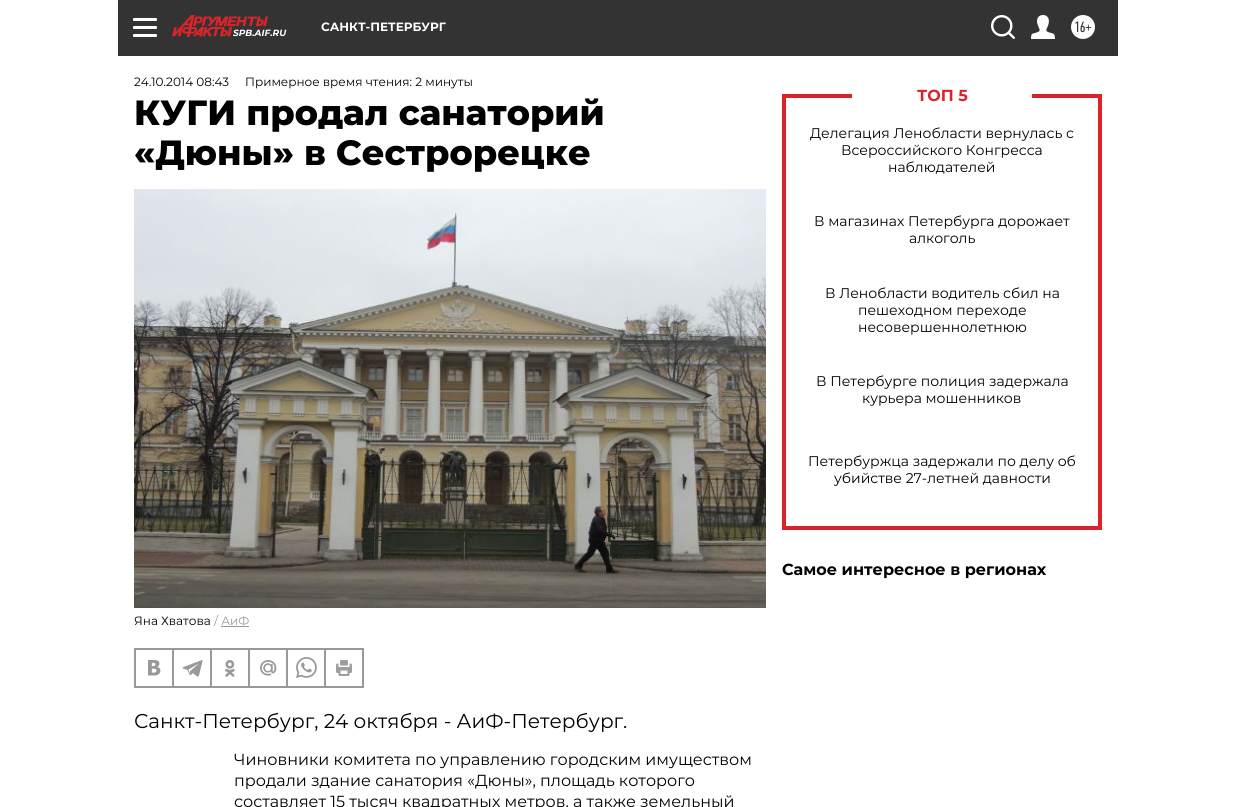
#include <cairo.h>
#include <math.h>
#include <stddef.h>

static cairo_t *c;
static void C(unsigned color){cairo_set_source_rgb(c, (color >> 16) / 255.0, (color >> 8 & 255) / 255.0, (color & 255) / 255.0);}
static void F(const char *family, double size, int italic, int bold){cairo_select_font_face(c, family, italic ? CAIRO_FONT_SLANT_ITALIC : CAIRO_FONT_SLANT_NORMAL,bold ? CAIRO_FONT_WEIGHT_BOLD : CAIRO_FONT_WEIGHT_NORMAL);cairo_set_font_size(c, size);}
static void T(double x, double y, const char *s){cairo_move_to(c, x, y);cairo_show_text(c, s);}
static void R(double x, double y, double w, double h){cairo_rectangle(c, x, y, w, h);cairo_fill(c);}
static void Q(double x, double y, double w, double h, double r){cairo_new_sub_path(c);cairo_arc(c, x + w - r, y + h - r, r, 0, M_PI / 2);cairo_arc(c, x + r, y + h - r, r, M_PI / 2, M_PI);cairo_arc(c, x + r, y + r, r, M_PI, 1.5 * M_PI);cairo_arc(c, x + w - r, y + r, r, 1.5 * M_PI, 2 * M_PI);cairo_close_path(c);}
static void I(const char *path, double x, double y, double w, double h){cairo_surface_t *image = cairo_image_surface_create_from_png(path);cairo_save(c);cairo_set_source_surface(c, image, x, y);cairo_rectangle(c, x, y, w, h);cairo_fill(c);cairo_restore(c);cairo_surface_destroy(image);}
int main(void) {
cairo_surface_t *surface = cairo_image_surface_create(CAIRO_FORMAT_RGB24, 1236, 807);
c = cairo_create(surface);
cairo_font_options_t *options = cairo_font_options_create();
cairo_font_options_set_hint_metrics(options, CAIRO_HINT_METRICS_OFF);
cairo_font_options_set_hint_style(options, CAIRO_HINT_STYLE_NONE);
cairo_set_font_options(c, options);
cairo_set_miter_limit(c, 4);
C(0xffffff);
cairo_paint(c);
C(0x333333);
R(118,0,1000,56);
C(0xffffff);
Q(133,18,24,3,1);
cairo_fill(c);
Q(133,26,24,3,1);
cairo_fill(c);
Q(133,34,24,3,1);
cairo_fill(c);
F("Montserrat",12,0,1);
T(321,31,"САНКТ-ПЕТЕРБУРГ");
I("1.png",991,15,24,24);
I("2.png",1031,15,24,24);
cairo_arc(c,1083,27,12,0,2 * M_PI);
cairo_fill(c);
F("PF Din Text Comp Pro",15,0,0);
C(0x333333);
T(1074,32,"16+");
I("3.png",172,15,96,22);
F("Montserrat",9,1,1);
C(0xffffff);
T(233,36,"SPB.AIF.RU");
F("Montserrat",12,0,0);
C(0x000000);
T(134,86,"24.10.2014 08:43");
T(245,86,"Примерное время чтения: 2 минуты");
F("Montserrat ExtraBold",35,0,0);
T(134,125,"КУГИ продал санаторий");
T(134,165,"«Дюны» в Сестрорецке");
I("4.png",134,189,632,419);
F("Montserrat",12,0,0);
T(134,625,"Яна Хватова");
C(0x999999);
T(214,625,"/ АиФ");
R(221,626,28,1);
cairo_rectangle(c,134.5,648.5,229,39);
cairo_set_line_width(c,1);
cairo_stroke(c);
cairo_rectangle(c,135.5,649.5,37,37);
cairo_stroke(c);
I("5.png",148,660,13,16);
cairo_rectangle(c,173.5,649.5,37,37);
cairo_stroke(c);
I("6.png",182,660,21,17);
cairo_rectangle(c,211.5,649.5,37,37);
cairo_stroke(c);
I("7.png",225,660,10,17);
cairo_rectangle(c,249.5,649.5,37,37);
cairo_stroke(c);
I("8.png",260,660,17,16);
cairo_rectangle(c,287.5,649.5,37,37);
cairo_stroke(c);
I("9.png",296,657,21,21);
cairo_rectangle(c,325.5,649.5,37,37);
cairo_stroke(c);
I("10.png",336,660,16,16);
F("Montserrat",20,0,0);
C(0x000000);
T(134,728,"Санкт-Петербург, 24 октября - АиФ-Петербург.");
F("Montserrat",16,0,0);
T(234,765,"Чиновники комитета по управлению городским имуществом");
T(234,786,"продали здание санатория «Дюны», площадь которого");
T(234,807,"составляет 15 тысяч квадратных метров, а также земельный");
C(0xda2429);
R(1098,94,4,436);
R(782,526,320,4);
R(782,94,4,436);
R(782,94,70,4);
F("Montserrat",16,0,1);
T(917,101,"ТОП 5");
R(1032,94,70,4);
F("Montserrat",14,0,0);
C(0x000000);
T(810,138,"Делегация Ленобласти вернулась с");
T(841,155,"Всероссийского Конгресса");
T(888,172,"наблюдателей");
T(814,226,"В магазинах Петербурга дорожает");
T(909,243,"алкоголь");
T(825,298,"В Ленобласти водитель сбил на");
T(858,315,"пешеходном переходе");
T(858,332,"несовершеннолетнюю");
T(816,386,"В Петербурге полиция задержала");
T(862,403,"курьера мошенников");
T(808,466,"Петербуржца задержали по делу об");
T(834,483,"убийстве 27-летней давности");
F("Montserrat",16,0,1);
T(782,575,"Самое интересное в регионах");
cairo_surface_write_to_png(surface, "o.png");
cairo_font_options_destroy(options);
cairo_destroy(c);
cairo_surface_destroy(surface);
return 0;
}
